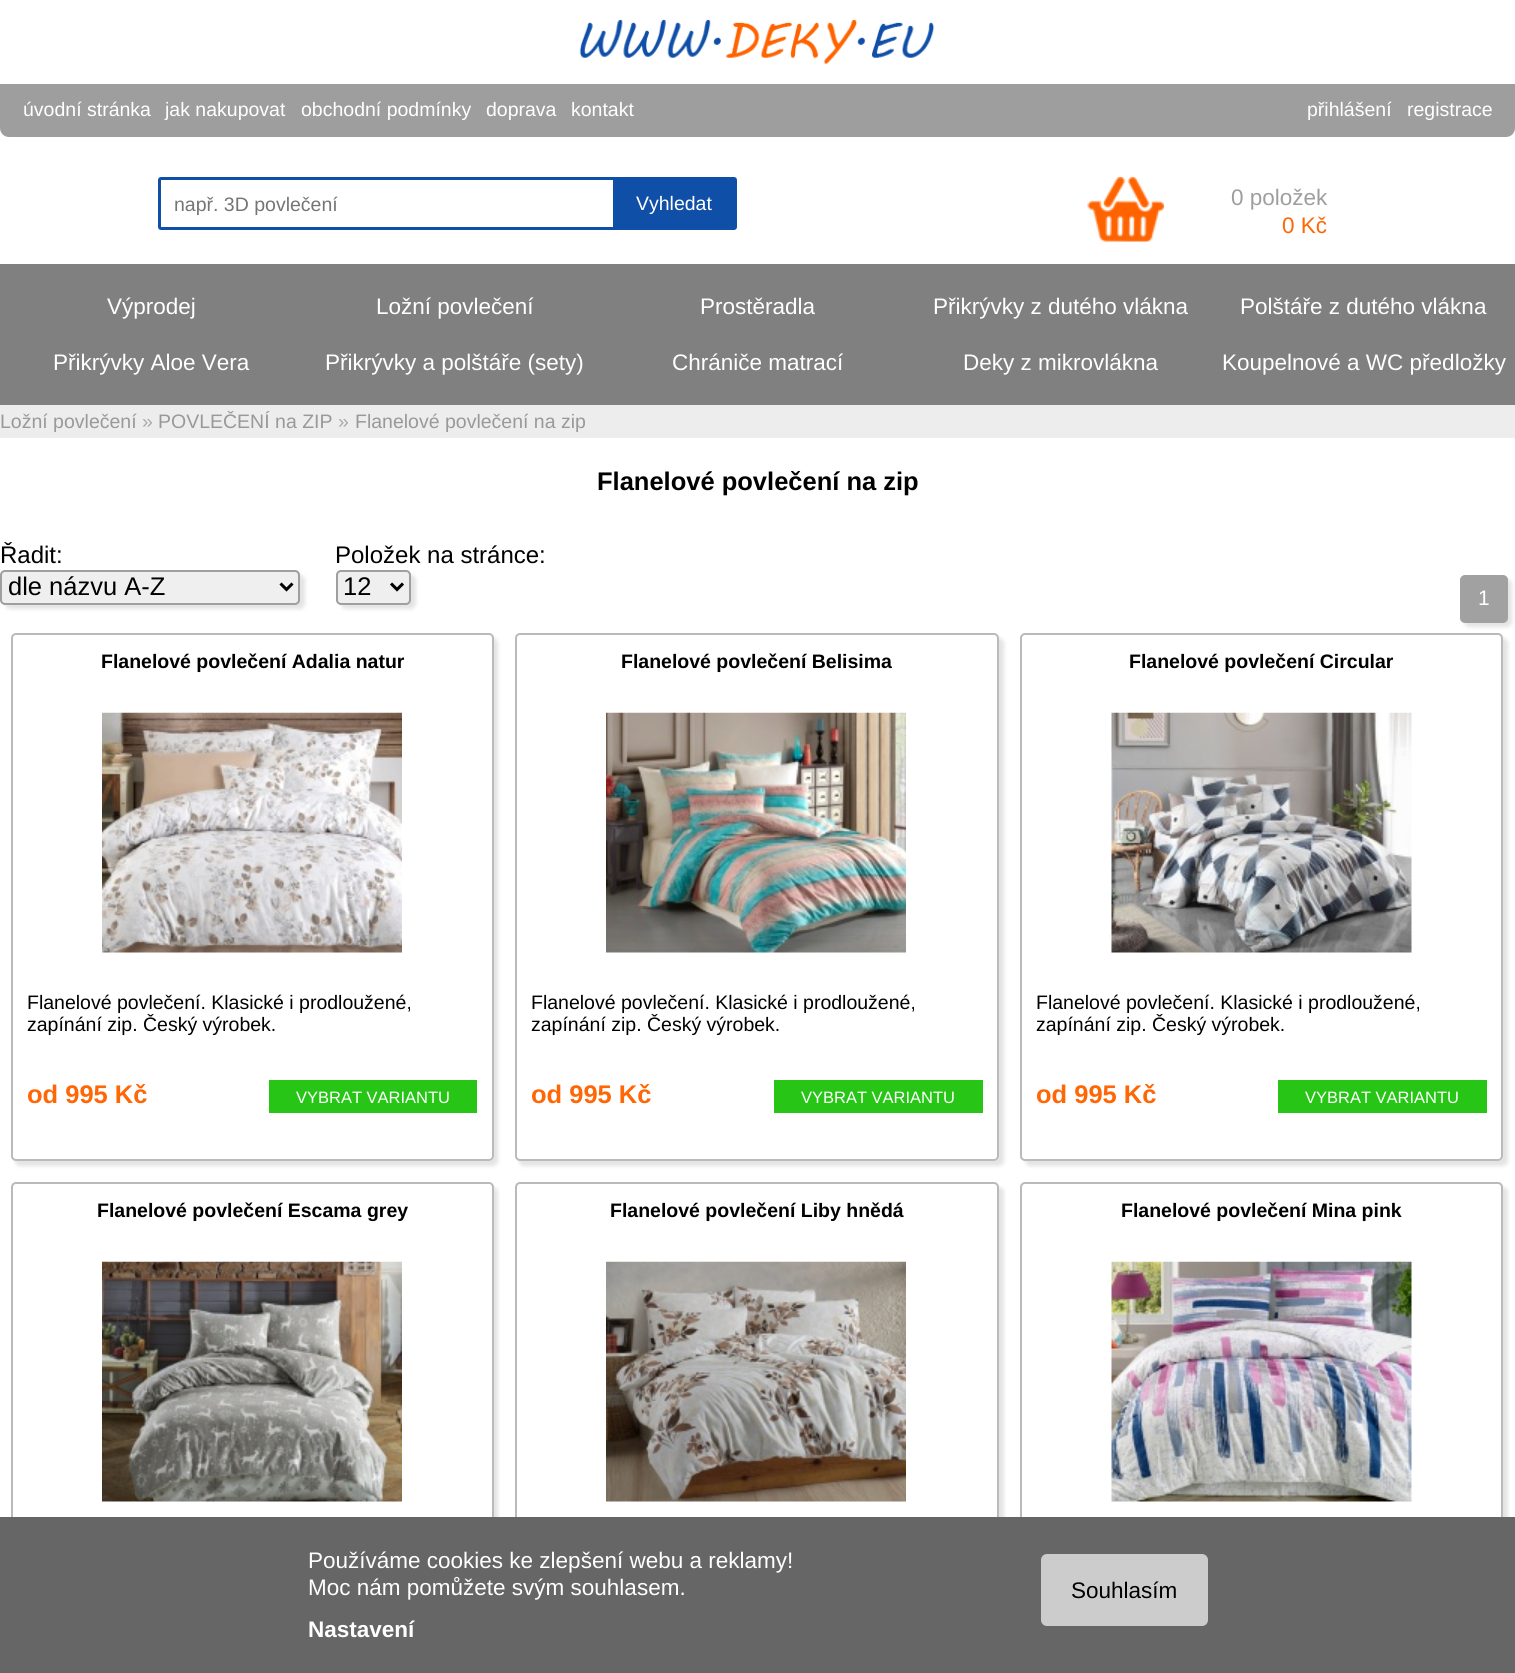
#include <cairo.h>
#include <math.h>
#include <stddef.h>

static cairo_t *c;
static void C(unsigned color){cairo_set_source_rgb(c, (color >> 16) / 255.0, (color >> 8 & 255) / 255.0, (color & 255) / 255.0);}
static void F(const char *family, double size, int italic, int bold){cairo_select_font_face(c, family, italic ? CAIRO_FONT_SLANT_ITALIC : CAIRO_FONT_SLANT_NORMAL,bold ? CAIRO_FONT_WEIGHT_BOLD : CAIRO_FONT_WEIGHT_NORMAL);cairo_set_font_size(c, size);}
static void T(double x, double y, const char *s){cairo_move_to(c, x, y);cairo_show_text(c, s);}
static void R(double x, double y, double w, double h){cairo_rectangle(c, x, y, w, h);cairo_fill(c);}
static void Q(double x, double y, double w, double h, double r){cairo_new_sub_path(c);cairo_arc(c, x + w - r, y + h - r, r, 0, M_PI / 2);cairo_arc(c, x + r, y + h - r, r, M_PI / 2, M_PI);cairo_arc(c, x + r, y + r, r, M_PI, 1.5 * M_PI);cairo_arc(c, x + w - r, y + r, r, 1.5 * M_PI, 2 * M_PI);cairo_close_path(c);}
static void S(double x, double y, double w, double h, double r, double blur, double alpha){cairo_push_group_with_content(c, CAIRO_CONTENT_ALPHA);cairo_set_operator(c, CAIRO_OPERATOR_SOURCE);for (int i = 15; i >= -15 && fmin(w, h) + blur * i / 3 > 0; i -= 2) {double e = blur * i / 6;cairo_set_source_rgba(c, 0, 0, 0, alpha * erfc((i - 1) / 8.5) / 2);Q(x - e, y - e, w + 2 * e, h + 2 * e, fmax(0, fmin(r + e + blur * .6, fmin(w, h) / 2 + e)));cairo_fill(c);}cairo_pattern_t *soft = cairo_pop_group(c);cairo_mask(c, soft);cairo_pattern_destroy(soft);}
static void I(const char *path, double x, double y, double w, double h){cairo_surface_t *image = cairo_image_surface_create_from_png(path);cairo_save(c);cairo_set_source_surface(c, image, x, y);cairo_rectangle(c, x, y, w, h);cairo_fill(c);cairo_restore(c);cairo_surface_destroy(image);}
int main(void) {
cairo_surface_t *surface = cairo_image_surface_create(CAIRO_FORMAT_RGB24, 1515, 1673);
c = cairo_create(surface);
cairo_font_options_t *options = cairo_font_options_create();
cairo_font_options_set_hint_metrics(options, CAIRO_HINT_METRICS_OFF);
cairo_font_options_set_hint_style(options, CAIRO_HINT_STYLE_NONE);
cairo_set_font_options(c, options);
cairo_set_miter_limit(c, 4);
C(0xffffff);
cairo_paint(c);
I("1.png",579,19,356,45);
C(0x9e9e9e);
cairo_new_path(c);
cairo_move_to(c,0,84);
cairo_line_to(c,1515,84);
cairo_line_to(c,1515,128);
cairo_curve_to(c,1515,133,1511,137,1506,137);
cairo_line_to(c,9,137);
cairo_curve_to(c,4,137,0,133,0,128);
cairo_close_path(c);
cairo_fill(c);
F("Liberation Sans",19.5,0,0);
C(0xffffff);
T(23,116,"úvodní stránka");
T(165,116,"jak nakupovat");
T(301,116,"obchodní podmínky");
T(486,116,"doprava");
T(571,116,"kontakt");
T(1307,116,"přihlášení");
T(1407,116,"registrace");
C(0x0f4fa8);
R(613,180,121,47);
Q(159.5,178.5,576,50,1.5);
cairo_set_line_width(c,3);
cairo_stroke(c);
C(0x757575);
T(174,211,"např. 3D povlečení");
C(0xffffff);
T(636,210,"Vyhledat");
I("2.png",1087,177,77,65);
F("Liberation Sans",22.5,0,0);
C(0x9e9e9f);
T(1231,205,"0 položek");
C(0xff6605);
T(1282,233,"0 Kč");
C(0xededed);
R(0,405,1515,33);
C(0x808080);
R(0,264,1515,141);
C(0xffffff);
T(107,314,"Výprodej");
T(376,314,"Ložní povlečení");
T(700,314,"Prostěradla");
T(933,314,"Přikrývky z dutého vlákna");
T(1240,314,"Polštáře z dutého vlákna");
T(53,370,"Přikrývky Aloe Vera");
T(325,370,"Přikrývky a polštáře (sety)");
T(672,370,"Chrániče matrací");
T(963,370,"Deky z mikrovlákna");
T(1222,370,"Koupelnové a WC předložky");
F("Liberation Sans",19.5,0,0);
C(0x999999);
T(0,428,"Ložní povlečení");
C(0xaaaaaa);
T(142,428,"»");
C(0x999999);
T(158,428,"POVLEČENÍ na ZIP");
C(0xaaaaaa);
T(338,428,"»");
C(0x999999);
T(355,428,"Flanelové povlečení na zip");
F("Liberation Sans",25.5,0,1);
C(0x000000);
T(597,490,"Flanelové povlečení na zip");
F("Liberation Sans",24,0,0);
T(0,563,"Řadit:");
C(0x000000);
S(5,575,300,34,5,2,.11);
C(0xefefef);
Q(1,571,298,33,4);
cairo_fill_preserve(c);
C(0xa19f9e);
cairo_set_line_width(c,2);
cairo_stroke(c);
cairo_new_path(c);
cairo_move_to(c,280.5,583.5);
cairo_line_to(c,286.5,589.5);
cairo_line_to(c,292.5,583.5);
C(0x000000);
cairo_set_line_width(c,3);
cairo_stroke(c);
F("Liberation Sans",25.5,0,0);
T(8,595,"dle názvu A-Z");
F("Liberation Sans",24,0,0);
T(335,563,"Položek na stránce:");
C(0x000000);
S(341,575,75,34,5,2,.11);
C(0xefefef);
Q(337,571,73,33,4);
cairo_fill_preserve(c);
C(0xa19f9e);
cairo_set_line_width(c,2);
cairo_stroke(c);
cairo_new_path(c);
cairo_move_to(c,391,583.5);
cairo_line_to(c,397,589.5);
cairo_line_to(c,403,583.5);
C(0x000000);
cairo_set_line_width(c,3);
cairo_stroke(c);
F("Liberation Sans",25.5,0,0);
T(343,595,"12");
C(0x000000);
S(1464,579,48,48,5,2,.11);
C(0xa1a1a1);
Q(1461,576,46,46,4);
cairo_fill_preserve(c);
cairo_set_line_width(c,2);
cairo_stroke(c);
F("Liberation Sans",21,0,0);
C(0xffffff);
T(1478,605,"1");
cairo_save(c);
cairo_set_fill_rule(c,CAIRO_FILL_RULE_EVEN_ODD);
cairo_new_path(c);
cairo_move_to(c,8,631);
cairo_line_to(c,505,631);
cairo_line_to(c,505,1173);
cairo_line_to(c,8,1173);
cairo_close_path(c);
cairo_move_to(c,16,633);
cairo_line_to(c,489,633);
cairo_curve_to(c,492,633,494,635,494,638);
cairo_line_to(c,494,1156);
cairo_curve_to(c,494,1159,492,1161,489,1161);
cairo_line_to(c,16,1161);
cairo_curve_to(c,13,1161,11,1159,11,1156);
cairo_line_to(c,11,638);
cairo_curve_to(c,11,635,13,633,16,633);
cairo_close_path(c);
cairo_clip(c);
C(0x000000);
S(15,638,483,528,5,2,.11);
cairo_restore(c);
Q(12,634,481,526,4);
C(0xbababa);
cairo_stroke(c);
F("Liberation Sans",19.5,0,1);
C(0x000000);
T(101,668,"Flanelové povlečení Adalia natur");
I("3.png",102,712,300,241);
F("Liberation Sans",19.5,0,0);
T(27,1009,"Flanelové povlečení. Klasické i prodloužené,");
T(27,1031,"zapínání zip. Český výrobek.");
F("Liberation Sans",25.5,0,1);
C(0xff6605);
T(27,1103,"od 995 Kč");
C(0x27c616);
R(269,1080,208,33);
F("Liberation Sans",16.5,0,0);
C(0xffffff);
T(296,1103,"VYBRAT VARIANTU");
cairo_save(c);
cairo_set_fill_rule(c,CAIRO_FILL_RULE_EVEN_ODD);
cairo_new_path(c);
cairo_move_to(c,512,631);
cairo_line_to(c,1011,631);
cairo_line_to(c,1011,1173);
cairo_line_to(c,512,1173);
cairo_close_path(c);
cairo_move_to(c,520,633);
cairo_line_to(c,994,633);
cairo_curve_to(c,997,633,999,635,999,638);
cairo_line_to(c,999,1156);
cairo_curve_to(c,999,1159,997,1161,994,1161);
cairo_line_to(c,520,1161);
cairo_curve_to(c,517,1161,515,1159,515,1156);
cairo_line_to(c,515,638);
cairo_curve_to(c,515,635,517,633,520,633);
cairo_close_path(c);
cairo_clip(c);
C(0x000000);
S(519,638,485,528,5,2,.11);
cairo_restore(c);
Q(516,634,482,526,4);
C(0xbababa);
cairo_stroke(c);
F("Liberation Sans",19.5,0,1);
C(0x000000);
T(621,668,"Flanelové povlečení Belisima");
I("4.png",606,712,300,241);
F("Liberation Sans",19.5,0,0);
T(531,1009,"Flanelové povlečení. Klasické i prodloužené,");
T(531,1031,"zapínání zip. Český výrobek.");
F("Liberation Sans",25.5,0,1);
C(0xff6605);
T(531,1103,"od 995 Kč");
C(0x27c616);
R(774,1080,209,33);
F("Liberation Sans",16.5,0,0);
C(0xffffff);
T(801,1103,"VYBRAT VARIANTU");
cairo_save(c);
cairo_set_fill_rule(c,CAIRO_FILL_RULE_EVEN_ODD);
cairo_new_path(c);
cairo_move_to(c,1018,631);
cairo_line_to(c,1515,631);
cairo_line_to(c,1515,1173);
cairo_line_to(c,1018,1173);
cairo_close_path(c);
cairo_move_to(c,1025,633);
cairo_line_to(c,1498,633);
cairo_curve_to(c,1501,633,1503,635,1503,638);
cairo_line_to(c,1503,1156);
cairo_curve_to(c,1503,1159,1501,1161,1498,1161);
cairo_line_to(c,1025,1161);
cairo_curve_to(c,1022,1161,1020,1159,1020,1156);
cairo_line_to(c,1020,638);
cairo_curve_to(c,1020,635,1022,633,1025,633);
cairo_close_path(c);
cairo_clip(c);
C(0x000000);
S(1025,638,483,528,5,2,.11);
cairo_restore(c);
Q(1021,634,481,526,4);
C(0xbababa);
cairo_stroke(c);
F("Liberation Sans",19.5,0,1);
C(0x000000);
T(1129,668,"Flanelové povlečení Circular");
I("5.png",1111,712,301,241);
F("Liberation Sans",19.5,0,0);
T(1036,1009,"Flanelové povlečení. Klasické i prodloužené,");
T(1036,1031,"zapínání zip. Český výrobek.");
F("Liberation Sans",25.5,0,1);
C(0xff6605);
T(1036,1103,"od 995 Kč");
C(0x27c616);
R(1278,1080,209,33);
F("Liberation Sans",16.5,0,0);
C(0xffffff);
T(1305,1103,"VYBRAT VARIANTU");
cairo_save(c);
cairo_rectangle(c,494,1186,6,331);
cairo_clip(c);
C(0x000000);
S(15,1187,483,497,5,2,.11);
cairo_restore(c);
Q(12,1183,481,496,4);
C(0xbababa);
cairo_stroke(c);
F("Liberation Sans",19.5,0,1);
C(0x000000);
T(97,1217,"Flanelové povlečení Escama grey");
I("6.png",102,1261,300,241);
cairo_save(c);
cairo_rectangle(c,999,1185,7,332);
cairo_clip(c);
C(0x000000);
S(519,1187,485,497,5,2,.11);
cairo_restore(c);
Q(516,1183,482,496,4);
C(0xbababa);
cairo_stroke(c);
C(0x000000);
T(610,1217,"Flanelové povlečení Liby hnědá");
I("7.png",606,1261,300,241);
cairo_save(c);
cairo_rectangle(c,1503,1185,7,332);
cairo_clip(c);
C(0x000000);
S(1025,1187,483,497,5,2,.11);
cairo_restore(c);
Q(1021,1183,481,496,4);
C(0xbababa);
cairo_stroke(c);
C(0x000000);
T(1121,1217,"Flanelové povlečení Mina pink");
I("8.png",1111,1261,301,241);
C(0x666666);
R(0,1517,1515,156);
F("Liberation Sans",22.5,0,0);
C(0xffffff);
T(308,1568,"Používáme cookies ke zlepšení webu a reklamy!");
T(308,1595,"Moc nám pomůžete svým souhlasem.");
C(0xcccccc);
Q(1041,1554,167,72,6);
cairo_fill(c);
C(0x000000);
T(1071,1598,"Souhlasím");
F("Liberation Sans",22.5,0,1);
C(0xffffff);
T(308,1637,"Nastavení");
cairo_surface_write_to_png(surface, "o.png");
cairo_font_options_destroy(options);
cairo_destroy(c);
cairo_surface_destroy(surface);
return 0;
}
